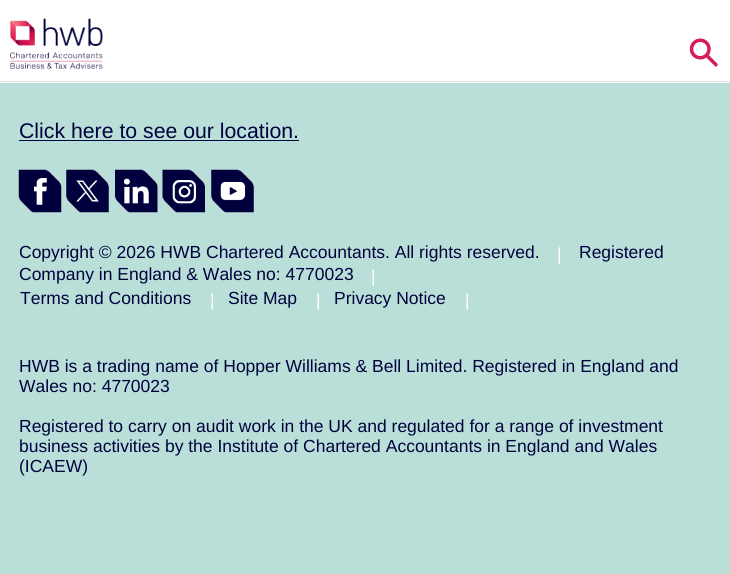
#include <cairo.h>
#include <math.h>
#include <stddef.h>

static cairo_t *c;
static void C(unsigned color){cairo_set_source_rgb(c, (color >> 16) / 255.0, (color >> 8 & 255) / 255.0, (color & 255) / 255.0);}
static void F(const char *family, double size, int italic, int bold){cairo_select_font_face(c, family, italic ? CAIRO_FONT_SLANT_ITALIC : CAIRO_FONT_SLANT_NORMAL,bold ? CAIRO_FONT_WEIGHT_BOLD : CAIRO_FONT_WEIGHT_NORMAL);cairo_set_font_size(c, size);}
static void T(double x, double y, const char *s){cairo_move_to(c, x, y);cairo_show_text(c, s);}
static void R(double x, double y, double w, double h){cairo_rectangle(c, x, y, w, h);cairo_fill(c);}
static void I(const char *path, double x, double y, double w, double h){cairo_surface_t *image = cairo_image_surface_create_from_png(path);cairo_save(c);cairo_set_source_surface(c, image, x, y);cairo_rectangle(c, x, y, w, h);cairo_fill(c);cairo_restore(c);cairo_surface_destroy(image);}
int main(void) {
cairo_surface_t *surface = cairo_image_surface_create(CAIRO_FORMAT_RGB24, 730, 574);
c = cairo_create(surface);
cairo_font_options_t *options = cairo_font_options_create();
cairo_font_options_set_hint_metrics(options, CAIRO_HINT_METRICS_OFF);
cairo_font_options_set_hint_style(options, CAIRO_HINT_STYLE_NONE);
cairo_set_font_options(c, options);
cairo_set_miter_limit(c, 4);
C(0xbadfd9);
cairo_paint(c);
C(0xffffff);
R(0,0,730,83);
C(0xdddddd);
R(0,81,730,1);
I("1.png",10,18,93,51);
I("2.png",689,38,29,29);
F("Liberation Sans",21.25,0,0);
C(0x00023d);
T(19,138,"Click here to see our location.");
R(19,140,280,1);
I("3.png",18,169,44,44);
I("4.png",66,169,43,44);
I("5.png",115,169,43,44);
I("6.png",162,169,43,44);
I("7.png",211,169,43,44);
F("Liberation Sans",17.5,0,0);
T(19,258,"Copyright © 2026 HWB Chartered Accountants. All rights reserved.");
C(0xffffff);
T(557,260,"|");
C(0x00023d);
T(579,258,"Registered");
T(19,280,"Company in England & Wales no: 4770023");
C(0xffffff);
T(371,282,"|");
C(0x00023d);
T(20,304,"Terms and Conditions");
C(0xffffff);
T(210,306,"|");
C(0x00023d);
T(228,304,"Site Map");
C(0xffffff);
T(316,306,"|");
C(0x00023d);
T(334,304,"Privacy Notice");
C(0xffffff);
T(465,306,"|");
C(0x00023d);
T(19,372,"HWB is a trading name of Hopper Williams & Bell Limited. Registered in England and");
T(19,392,"Wales no: 4770023");
T(19,432,"Registered to carry on audit work in the UK and regulated for a range of investment");
T(19,452,"business activities by the Institute of Chartered Accountants in England and Wales");
T(19,472,"(ICAEW)");
cairo_surface_write_to_png(surface, "o.png");
cairo_font_options_destroy(options);
cairo_destroy(c);
cairo_surface_destroy(surface);
return 0;
}
